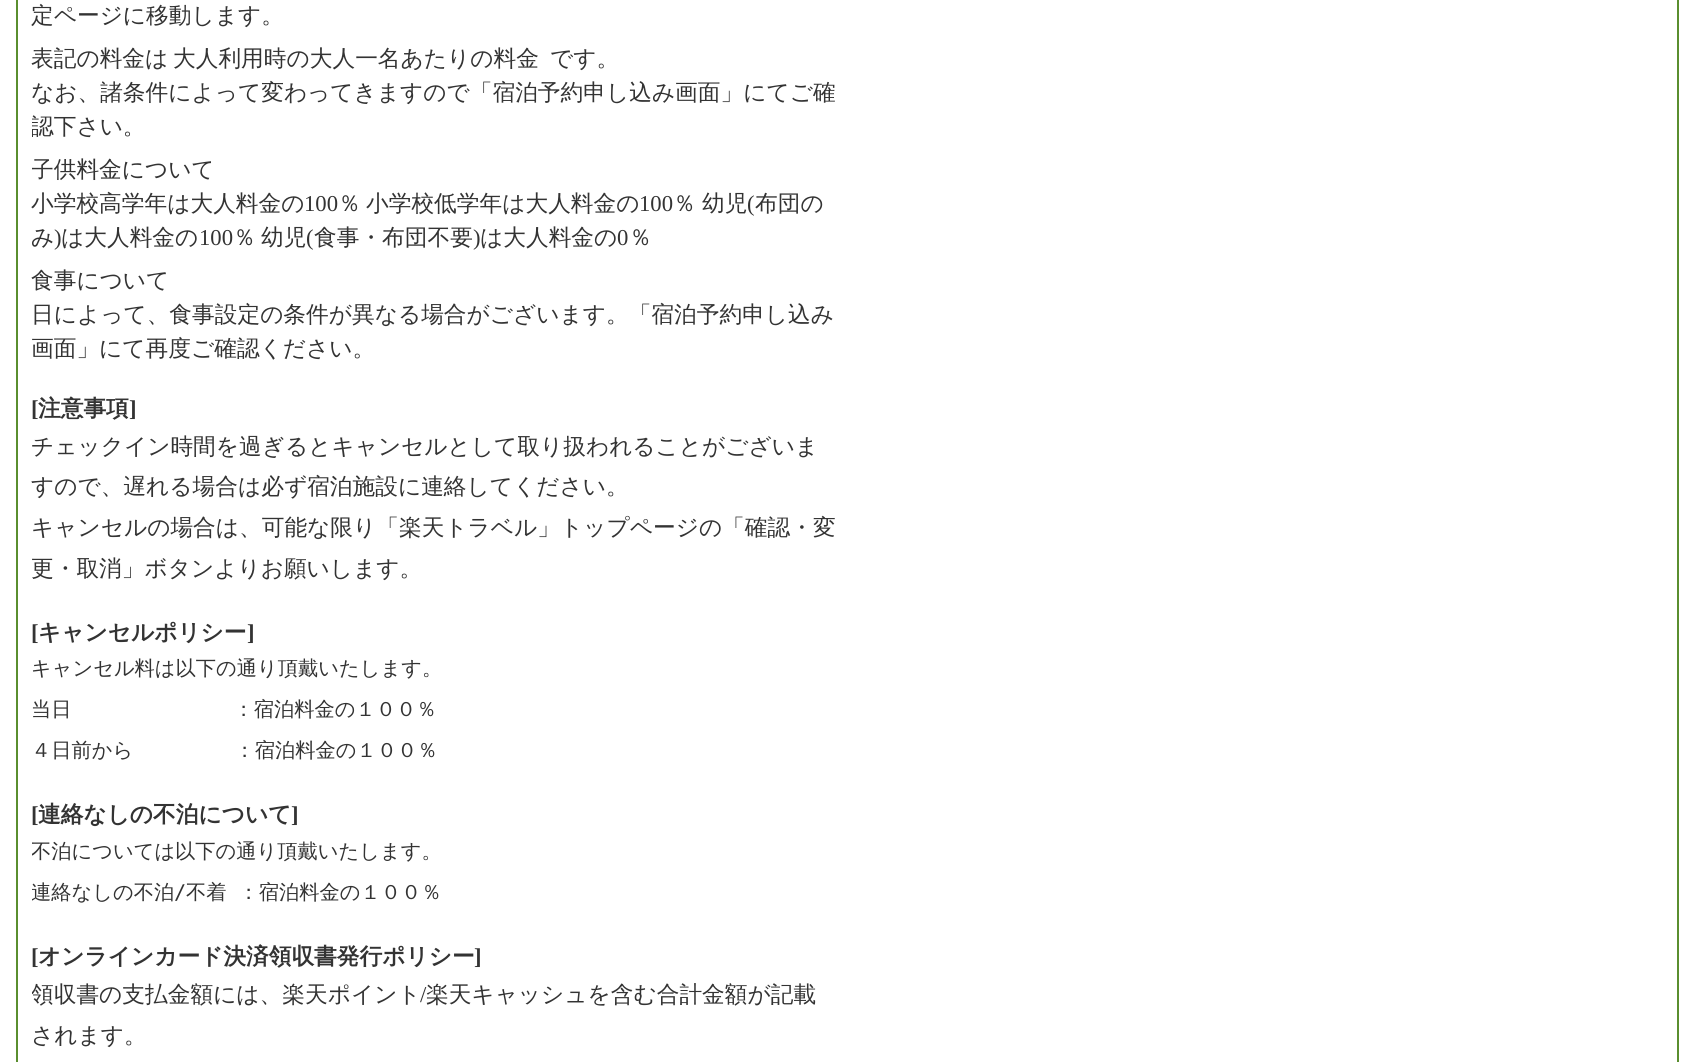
#include <cairo.h>
#include <math.h>
#include <stddef.h>

static cairo_t *c;
static void C(unsigned color){cairo_set_source_rgb(c, (color >> 16) / 255.0, (color >> 8 & 255) / 255.0, (color & 255) / 255.0);}
static void F(const char *family, double size, int italic, int bold){cairo_select_font_face(c, family, italic ? CAIRO_FONT_SLANT_ITALIC : CAIRO_FONT_SLANT_NORMAL,bold ? CAIRO_FONT_WEIGHT_BOLD : CAIRO_FONT_WEIGHT_NORMAL);cairo_set_font_size(c, size);}
static void T(double x, double y, const char *s){cairo_move_to(c, x, y);cairo_show_text(c, s);}
static void L(double x, double y, const char *s, double letter, double word){cairo_move_to(c, x, y);while (*s) {char ch[5] = {0};int n = 0;do ch[n++] = *s++; while ((*s & 0xC0) == 0x80);cairo_show_text(c, ch);cairo_rel_move_to(c, letter + word * (*ch == ' '), 0);}}
static void R(double x, double y, double w, double h){cairo_rectangle(c, x, y, w, h);cairo_fill(c);}
int main(void) {
cairo_surface_t *surface = cairo_image_surface_create(CAIRO_FORMAT_RGB24, 1692, 1062);
c = cairo_create(surface);
cairo_font_options_t *options = cairo_font_options_create();
cairo_font_options_set_hint_metrics(options, CAIRO_HINT_METRICS_OFF);
cairo_font_options_set_hint_style(options, CAIRO_HINT_STYLE_NONE);
cairo_set_font_options(c, options);
cairo_set_miter_limit(c, 4);
C(0xffffff);
cairo_paint(c);
C(0x5a8e2f);
R(1677,0,2,1062);
R(16,0,2,1062);
F("WenQuanYi Zen Hei Medium",22.7,0,0);
C(0x333333);
T(31,23,"定ページに移動します。");
T(31,66,"表記の料金は");
T(173,66,"大人利用時の大人一名あたりの料金");
T(550,66,"です。");
T(31,100,"なお、諸条件によって変わってきますので「宿泊予約申し込み画面」にてご確");
cairo_save(c);
cairo_rectangle(c,32,42,805,102);
cairo_clip(c);
T(31,134,"認下さい。");
cairo_restore(c);
cairo_save(c);
cairo_rectangle(c,32,152,805,102);
cairo_clip(c);
T(31,177,"子供料金について");
cairo_restore(c);
T(31,211,"小学校高学年は大人料金の");
F("Liberation Serif",22.7,0,0);
T(304,211,"100");
F("WenQuanYi Zen Hei Medium",22.7,0,0);
T(338,211,"％");
T(366,211,"小学校低学年は大人料金の");
F("Liberation Serif",22.7,0,0);
T(639,211,"100");
F("WenQuanYi Zen Hei Medium",22.7,0,0);
T(673,211,"％");
T(702,211,"幼児");
F("Liberation Serif",22.7,0,0);
T(747,211,"(");
F("WenQuanYi Zen Hei Medium",22.7,0,0);
T(755,211,"布団の");
cairo_save(c);
cairo_rectangle(c,32,152,805,102);
cairo_clip(c);
T(31,245,"み");
cairo_restore(c);
F("Liberation Serif",22.7,0,0);
T(54,245,")");
F("WenQuanYi Zen Hei Medium",22.7,0,0);
T(61,245,"は大人料金の");
F("Liberation Serif",22.7,0,0);
T(199,245,"100");
F("WenQuanYi Zen Hei Medium",22.7,0,0);
T(233,245,"％");
T(261,245,"幼児");
F("Liberation Serif",22.7,0,0);
T(306,245,"(");
F("WenQuanYi Zen Hei Medium",22.7,0,0);
T(314,245,"食事・布団不要");
F("Liberation Serif",22.7,0,0);
T(473,245,")");
F("WenQuanYi Zen Hei Medium",22.7,0,0);
T(480,245,"は大人料金の");
F("Liberation Serif",22.7,0,0);
T(617,245,"0");
F("WenQuanYi Zen Hei Medium",22.7,0,0);
T(629,245,"％");
T(31,288,"食事について");
T(31,322,"日によって、食事設定の条件が異なる場合がございます。「宿泊予約申し込み");
T(31,356,"画面」にて再度ご確認ください。");
F("Liberation Serif",22.7,0,1);
T(31,416,"[");
F("WenQuanYi Zen Hei",22.7,0,1);
T(38,416,"注意事項");
F("Liberation Serif",22.7,0,1);
T(129,416,"]");
F("WenQuanYi Zen Hei Medium",22.7,0,0);
T(31,454,"チェックイン時間を過ぎるとキャンセルとして取り扱われることがございま");
T(31,494,"すので、遅れる場合は必ず宿泊施設に連絡してください。");
T(31,535,"キャンセルの場合は、可能な限り「楽天トラベル」トップページの「確認・変");
cairo_save(c);
cairo_rectangle(c,32,0,1631,1055);
cairo_clip(c);
T(31,576,"更・取消」ボタンよりお願いします。");
cairo_restore(c);
F("Liberation Serif",22.7,0,1);
T(31,640,"[");
F("WenQuanYi Zen Hei",22.7,0,1);
T(38,640,"キャンセルポリシー");
F("Liberation Serif",22.7,0,1);
T(247,640,"]");
F("WenQuanYi Zen Hei Medium",20.25,0,0);
T(31,675,"キャンセル料は以下の通り頂戴いたします。");
T(31,716,"当日　　　　　　　　：宿泊料金の１００％");
T(31,757,"４日前から　　　　　：宿泊料金の１００％");
F("Liberation Serif",22.7,0,1);
T(31,822,"[");
F("WenQuanYi Zen Hei",22.7,0,1);
T(38,822,"連絡なしの不泊について");
F("Liberation Serif",22.7,0,1);
T(291,822,"]");
cairo_save(c);
cairo_rectangle(c,32,0,1631,1055);
cairo_clip(c);
F("WenQuanYi Zen Hei Medium",20.25,0,0);
T(31,858,"不泊については以下の通り頂戴いたします。");
T(31,899,"連絡なしの不泊");
cairo_restore(c);
F("DejaVu Sans Mono",20.25,0,0);
T(174,899,"/");
F("WenQuanYi Zen Hei Medium",20.25,0,0);
L(186,899,"不着 ：宿泊料金の１００％",0,6);
F("Liberation Serif",22.7,0,1);
T(31,964,"[");
F("WenQuanYi Zen Hei",22.7,0,1);
T(38,964,"オンラインカード決済領収書発行ポリシー");
F("Liberation Serif",22.7,0,1);
T(474,964,"]");
cairo_save(c);
cairo_rectangle(c,32,0,1631,1055);
cairo_clip(c);
F("WenQuanYi Zen Hei Medium",22.7,0,0);
T(31,1002,"領収書の支払金額には、楽天ポイント");
cairo_restore(c);
F("Liberation Serif",22.7,0,0);
T(420,1002,"/");
F("WenQuanYi Zen Hei Medium",22.7,0,0);
T(426,1002,"楽天キャッシュを含む合計金額が記載");
T(31,1043,"されます。");
cairo_surface_write_to_png(surface, "o.png");
cairo_font_options_destroy(options);
cairo_destroy(c);
cairo_surface_destroy(surface);
return 0;
}
